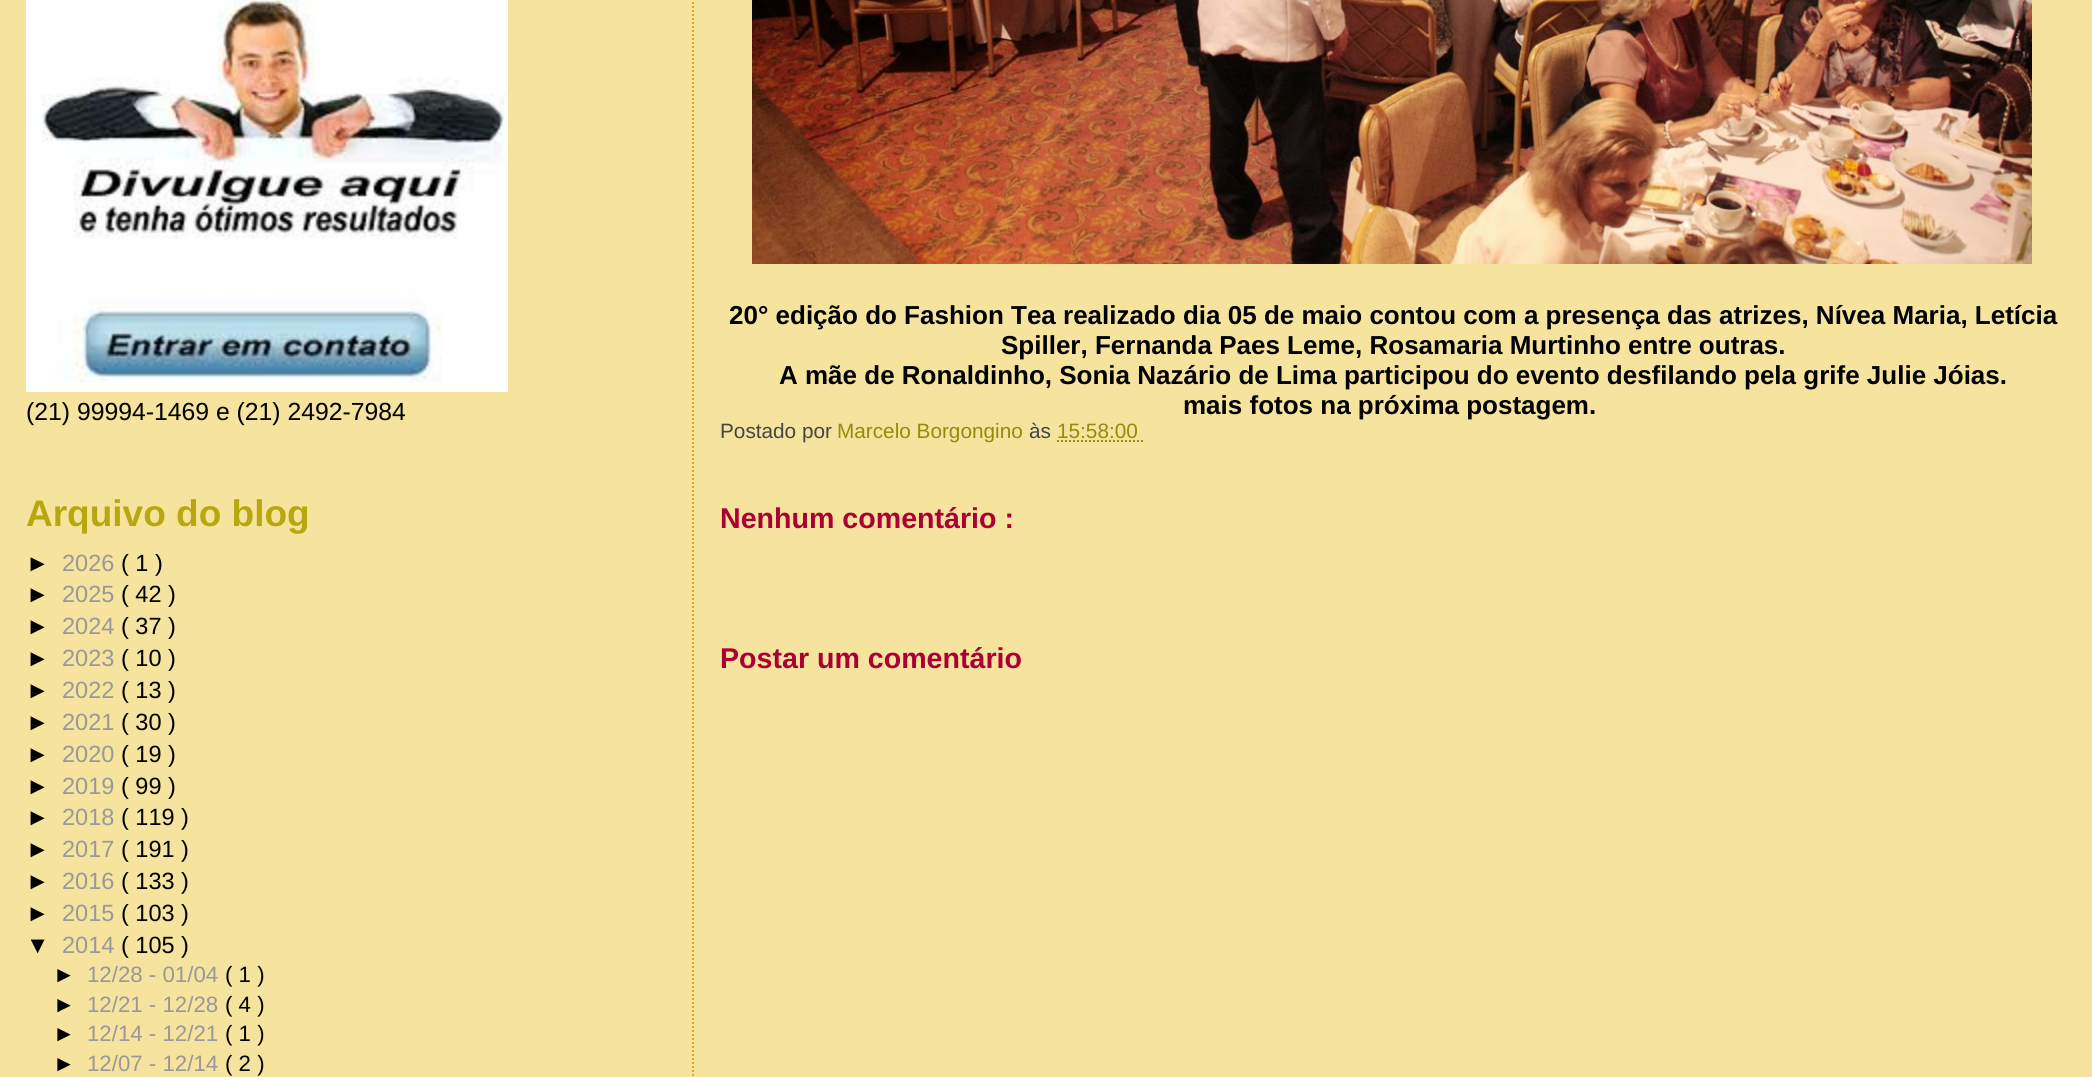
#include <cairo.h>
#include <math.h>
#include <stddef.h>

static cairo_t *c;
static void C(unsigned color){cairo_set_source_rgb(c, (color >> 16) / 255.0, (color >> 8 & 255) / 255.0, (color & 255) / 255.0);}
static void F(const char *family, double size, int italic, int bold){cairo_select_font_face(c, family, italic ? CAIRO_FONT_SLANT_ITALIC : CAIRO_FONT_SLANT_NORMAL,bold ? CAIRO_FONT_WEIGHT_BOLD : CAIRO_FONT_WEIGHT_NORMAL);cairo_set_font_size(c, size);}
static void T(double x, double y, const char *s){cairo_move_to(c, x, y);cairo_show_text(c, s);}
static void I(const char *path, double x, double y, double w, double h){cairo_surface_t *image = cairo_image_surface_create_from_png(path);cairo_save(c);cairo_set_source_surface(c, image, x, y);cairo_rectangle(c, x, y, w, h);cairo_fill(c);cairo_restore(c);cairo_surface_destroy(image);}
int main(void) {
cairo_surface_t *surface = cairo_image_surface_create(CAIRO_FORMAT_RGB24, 2092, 1077);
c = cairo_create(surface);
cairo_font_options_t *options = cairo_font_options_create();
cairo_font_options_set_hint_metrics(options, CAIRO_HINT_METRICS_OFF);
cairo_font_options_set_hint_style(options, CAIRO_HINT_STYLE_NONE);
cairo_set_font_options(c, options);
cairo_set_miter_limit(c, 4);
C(0xf5e39e);
cairo_paint(c);
I("1.png",26,0,482,392);
F("Liberation Sans",24.75,0,0);
C(0x000000);
T(26,420,"(21) 99994-1469 e (21) 2492-7984");
F("Liberation Sans",37,0,1);
C(0xb8a80d);
T(26,526,"Arquivo do blog");
F("Liberation Sans",23.5,0,0);
C(0x000000);
T(26,571,"►");
C(0x999999);
T(62,571,"2026");
C(0x000000);
T(121,571,"( 1 )");
T(26,602,"►");
C(0x999999);
T(62,602,"2025");
C(0x000000);
T(121,602,"( 42 )");
T(26,634,"►");
C(0x999999);
T(62,634,"2024");
C(0x000000);
T(121,634,"( 37 )");
T(26,666,"►");
C(0x999999);
T(62,666,"2023");
C(0x000000);
T(121,666,"( 10 )");
T(26,698,"►");
C(0x999999);
T(62,698,"2022");
C(0x000000);
T(121,698,"( 13 )");
T(26,730,"►");
C(0x999999);
T(62,730,"2021");
C(0x000000);
T(121,730,"( 30 )");
T(26,762,"►");
C(0x999999);
T(62,762,"2020");
C(0x000000);
T(121,762,"( 19 )");
T(26,794,"►");
C(0x999999);
T(62,794,"2019");
C(0x000000);
T(121,794,"( 99 )");
T(26,825,"►");
C(0x999999);
T(62,825,"2018");
C(0x000000);
T(121,825,"( 119 )");
T(26,857,"►");
C(0x999999);
T(62,857,"2017");
C(0x000000);
T(121,857,"( 191 )");
T(26,889,"►");
C(0x999999);
T(62,889,"2016");
C(0x000000);
T(121,889,"( 133 )");
T(26,921,"►");
C(0x999999);
T(62,921,"2015");
C(0x000000);
T(121,921,"( 103 )");
T(26,953,"▼");
C(0x999999);
T(62,953,"2014");
C(0x000000);
T(121,953,"( 105 )");
F("Liberation Sans",22.25,0,0);
T(53,982,"►");
C(0x999999);
T(87,982,"12/28 - 01/04");
C(0x000000);
T(225,982,"( 1 )");
T(53,1012,"►");
C(0x999999);
T(87,1012,"12/21 - 12/28");
C(0x000000);
T(225,1012,"( 4 )");
T(53,1041,"►");
C(0x999999);
T(87,1041,"12/14 - 12/21");
C(0x000000);
T(225,1041,"( 1 )");
T(53,1071,"►");
C(0x999999);
T(87,1071,"12/07 - 12/14");
C(0x000000);
T(225,1071,"( 2 )");
cairo_new_path(c);
cairo_move_to(c,693,-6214);
cairo_line_to(c,693,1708);
C(0xe0ad12);
cairo_set_dash(c,(double[]){2,2},2,0);
cairo_stroke(c);
I("2.png",752,0,1280,264);
F("Liberation Sans",26,0,1);
C(0x000000);
T(729,324,"20° edição do Fashion Tea realizado dia 05 de maio contou com a presença das atrizes, Nívea Maria, Letícia");
T(1001,354,"Spiller, Fernanda Paes Leme, Rosamaria Murtinho entre outras.");
T(779,384,"A mãe de Ronaldinho, Sonia Nazário de Lima participou do evento desfilando pela grife Julie Jóias.");
T(1183,414,"mais fotos na próxima postagem.");
F("Liberation Sans",20.75,0,0);
C(0x444444);
T(720,438,"Postado por");
C(0x968a0a);
T(837,438,"Marcelo Borgongino");
C(0x444444);
T(1029,438,"às");
C(0x968a0a);
T(1057,438,"15:58:00");
cairo_new_path(c);
cairo_move_to(c,1057,441);
cairo_line_to(c,1143.5,441);
cairo_stroke(c);
F("Liberation Sans",28.6,0,1);
C(0xaa0033);
T(720,528,"Nenhum comentário :");
T(720,668,"Postar um comentário");
cairo_surface_write_to_png(surface, "o.png");
cairo_font_options_destroy(options);
cairo_destroy(c);
cairo_surface_destroy(surface);
return 0;
}
